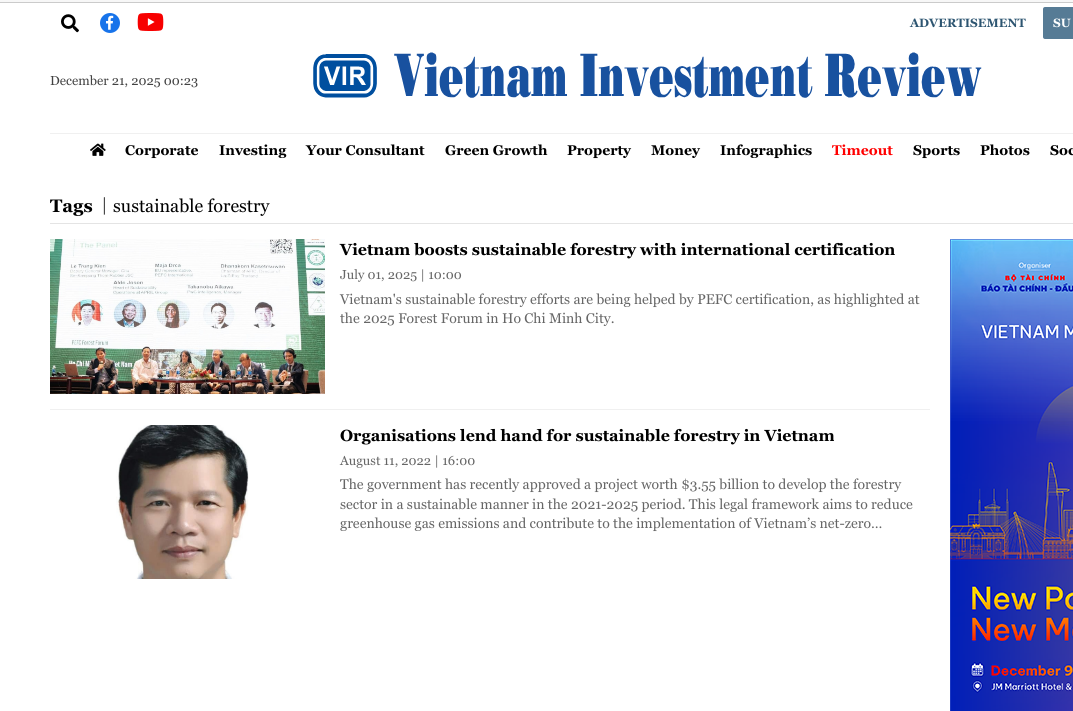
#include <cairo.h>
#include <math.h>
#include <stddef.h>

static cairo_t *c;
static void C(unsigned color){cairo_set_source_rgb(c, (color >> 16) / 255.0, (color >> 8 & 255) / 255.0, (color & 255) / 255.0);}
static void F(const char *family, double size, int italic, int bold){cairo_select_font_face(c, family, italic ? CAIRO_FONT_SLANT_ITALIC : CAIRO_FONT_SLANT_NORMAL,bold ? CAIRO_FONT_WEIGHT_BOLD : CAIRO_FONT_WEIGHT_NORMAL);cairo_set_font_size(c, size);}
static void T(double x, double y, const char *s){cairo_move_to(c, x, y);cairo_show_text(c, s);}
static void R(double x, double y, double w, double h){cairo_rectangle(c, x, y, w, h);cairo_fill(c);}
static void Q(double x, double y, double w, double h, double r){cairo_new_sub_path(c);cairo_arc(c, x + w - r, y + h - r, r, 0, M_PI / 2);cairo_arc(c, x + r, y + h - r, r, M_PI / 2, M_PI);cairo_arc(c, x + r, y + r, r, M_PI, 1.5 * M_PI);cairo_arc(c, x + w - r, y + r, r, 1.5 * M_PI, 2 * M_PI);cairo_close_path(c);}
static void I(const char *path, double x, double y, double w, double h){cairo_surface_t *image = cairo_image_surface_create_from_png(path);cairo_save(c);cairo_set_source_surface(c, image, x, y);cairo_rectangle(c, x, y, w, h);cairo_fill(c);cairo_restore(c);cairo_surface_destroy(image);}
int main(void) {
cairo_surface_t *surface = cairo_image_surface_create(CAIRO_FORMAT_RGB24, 1073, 711);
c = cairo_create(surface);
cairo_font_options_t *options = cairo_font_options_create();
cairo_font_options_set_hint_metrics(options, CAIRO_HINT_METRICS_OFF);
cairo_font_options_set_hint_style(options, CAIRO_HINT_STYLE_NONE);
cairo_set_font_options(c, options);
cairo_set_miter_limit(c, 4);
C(0xffffff);
cairo_paint(c);
C(0xf7f7f7);
R(0,0,1073,2);
C(0xcbcbcb);
R(0,2,1073,1);
I("1.png",61,14,18,19);
C(0x1773ea);
cairo_arc(c,110,23,10,0,2 * M_PI);
cairo_fill(c);
I("2.png",106,15,8,15);
I("3.png",137,13,27,18);
F("Georgia",12,0,1);
C(0x2d5571);
T(910,27,"ADVERTISEMENT");
C(0x567b95);
Q(1043,7,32,32,2);
cairo_fill(c);
C(0xffffff);
T(1053,27,"SU");
C(0xf0f0f0);
R(50,133,1023,1);
F("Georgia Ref",13,0,0);
C(0x424242);
T(50,85,"December 21, 2025 00:23");
I("4.png",313,52,669,46);
I("5.png",90,143,16,13);
F("Georgia",14,0,1);
C(0x000000);
T(125,155,"Corporate");
T(219,155,"Investing");
T(306,155,"Your Consultant");
T(445,155,"Green Growth");
T(567,155,"Property");
T(651,155,"Money");
T(720,155,"Infographics");
C(0xff0000);
T(832,155,"Timeout");
C(0x000000);
T(913,155,"Sports");
T(980,155,"Photos");
T(1050,155,"Soc");
C(0xe4e4e4);
R(50,223,1023,1);
F("Georgia",18,0,1);
C(0x000000);
T(50,212,"Tags");
I("6.png",103,197,2,18);
F("Georgia Ref",18,0,0);
T(113,212,"sustainable forestry");
I("7.png",50,239,275,155);
F("Georgia",16,0,1);
T(340,255,"Vietnam boosts sustainable forestry with international certification");
F("Georgia Ref",13,0,0);
C(0x666666);
T(340,279,"July 01, 2025 | 10:00");
F("Georgia Ref",14,0,0);
T(340,304,"Vietnam's sustainable forestry efforts are being helped by PEFC certification, as highlighted at");
T(340,323,"the 2025 Forest Forum in Ho Chi Minh City.");
C(0xf0f0f0);
R(50,409,880,1);
I("8.png",116,425,133,154);
F("Georgia",16,0,1);
C(0x000000);
T(340,441,"Organisations lend hand for sustainable forestry in Vietnam");
F("Georgia Ref",13,0,0);
C(0x666666);
T(340,465,"August 11, 2022 | 16:00");
F("Georgia Ref",14,0,0);
T(340,489,"The government has recently approved a project worth $3.55 billion to develop the forestry");
T(340,509,"sector in a sustainable manner in the 2021-2025 period. This legal framework aims to reduce");
T(340,528,"greenhouse gas emissions and contribute to the implementation of Vietnam’s net-zero…");
I("9.png",950,239,123,472);
cairo_surface_write_to_png(surface, "o.png");
cairo_font_options_destroy(options);
cairo_destroy(c);
cairo_surface_destroy(surface);
return 0;
}
